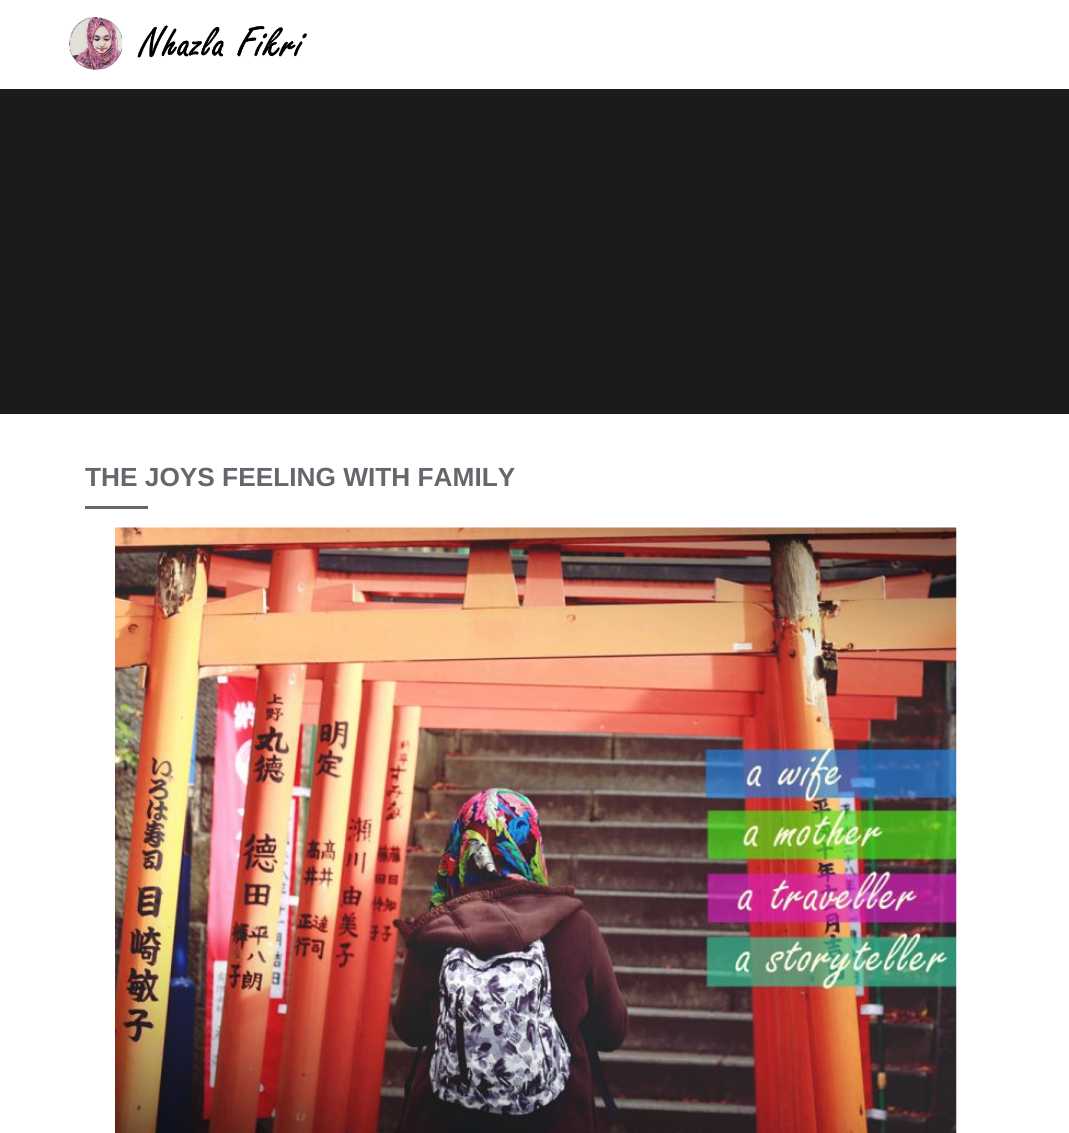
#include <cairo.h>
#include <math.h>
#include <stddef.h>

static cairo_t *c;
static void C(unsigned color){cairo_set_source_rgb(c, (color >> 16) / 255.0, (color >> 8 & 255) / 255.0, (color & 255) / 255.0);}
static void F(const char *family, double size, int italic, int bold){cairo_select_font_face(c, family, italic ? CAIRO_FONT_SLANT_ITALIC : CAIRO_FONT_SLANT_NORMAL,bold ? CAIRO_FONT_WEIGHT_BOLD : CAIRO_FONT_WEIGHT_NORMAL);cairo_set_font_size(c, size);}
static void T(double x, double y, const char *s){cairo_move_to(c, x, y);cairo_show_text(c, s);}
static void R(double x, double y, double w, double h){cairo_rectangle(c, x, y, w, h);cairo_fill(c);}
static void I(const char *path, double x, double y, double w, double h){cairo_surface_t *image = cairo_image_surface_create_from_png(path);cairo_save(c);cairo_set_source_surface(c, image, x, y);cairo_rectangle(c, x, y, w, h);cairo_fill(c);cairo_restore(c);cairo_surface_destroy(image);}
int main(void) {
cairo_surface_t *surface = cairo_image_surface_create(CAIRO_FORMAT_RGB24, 1069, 1133);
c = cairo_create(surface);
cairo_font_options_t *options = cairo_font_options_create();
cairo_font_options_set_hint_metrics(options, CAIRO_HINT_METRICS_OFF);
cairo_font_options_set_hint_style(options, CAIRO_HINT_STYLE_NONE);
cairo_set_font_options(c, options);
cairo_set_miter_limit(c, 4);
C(0xffffff);
cairo_paint(c);
I("1.png",69,17,238,53);
C(0x1b1b1b);
R(0,89,1069,325);
F("Liberation Sans",26.25,0,1);
C(0x64686d);
T(85,486,"THE JOYS FEELING WITH FAMILY");
R(85,506,63,3);
I("2.png",115,527,842,606);
cairo_surface_write_to_png(surface, "o.png");
cairo_font_options_destroy(options);
cairo_destroy(c);
cairo_surface_destroy(surface);
return 0;
}
